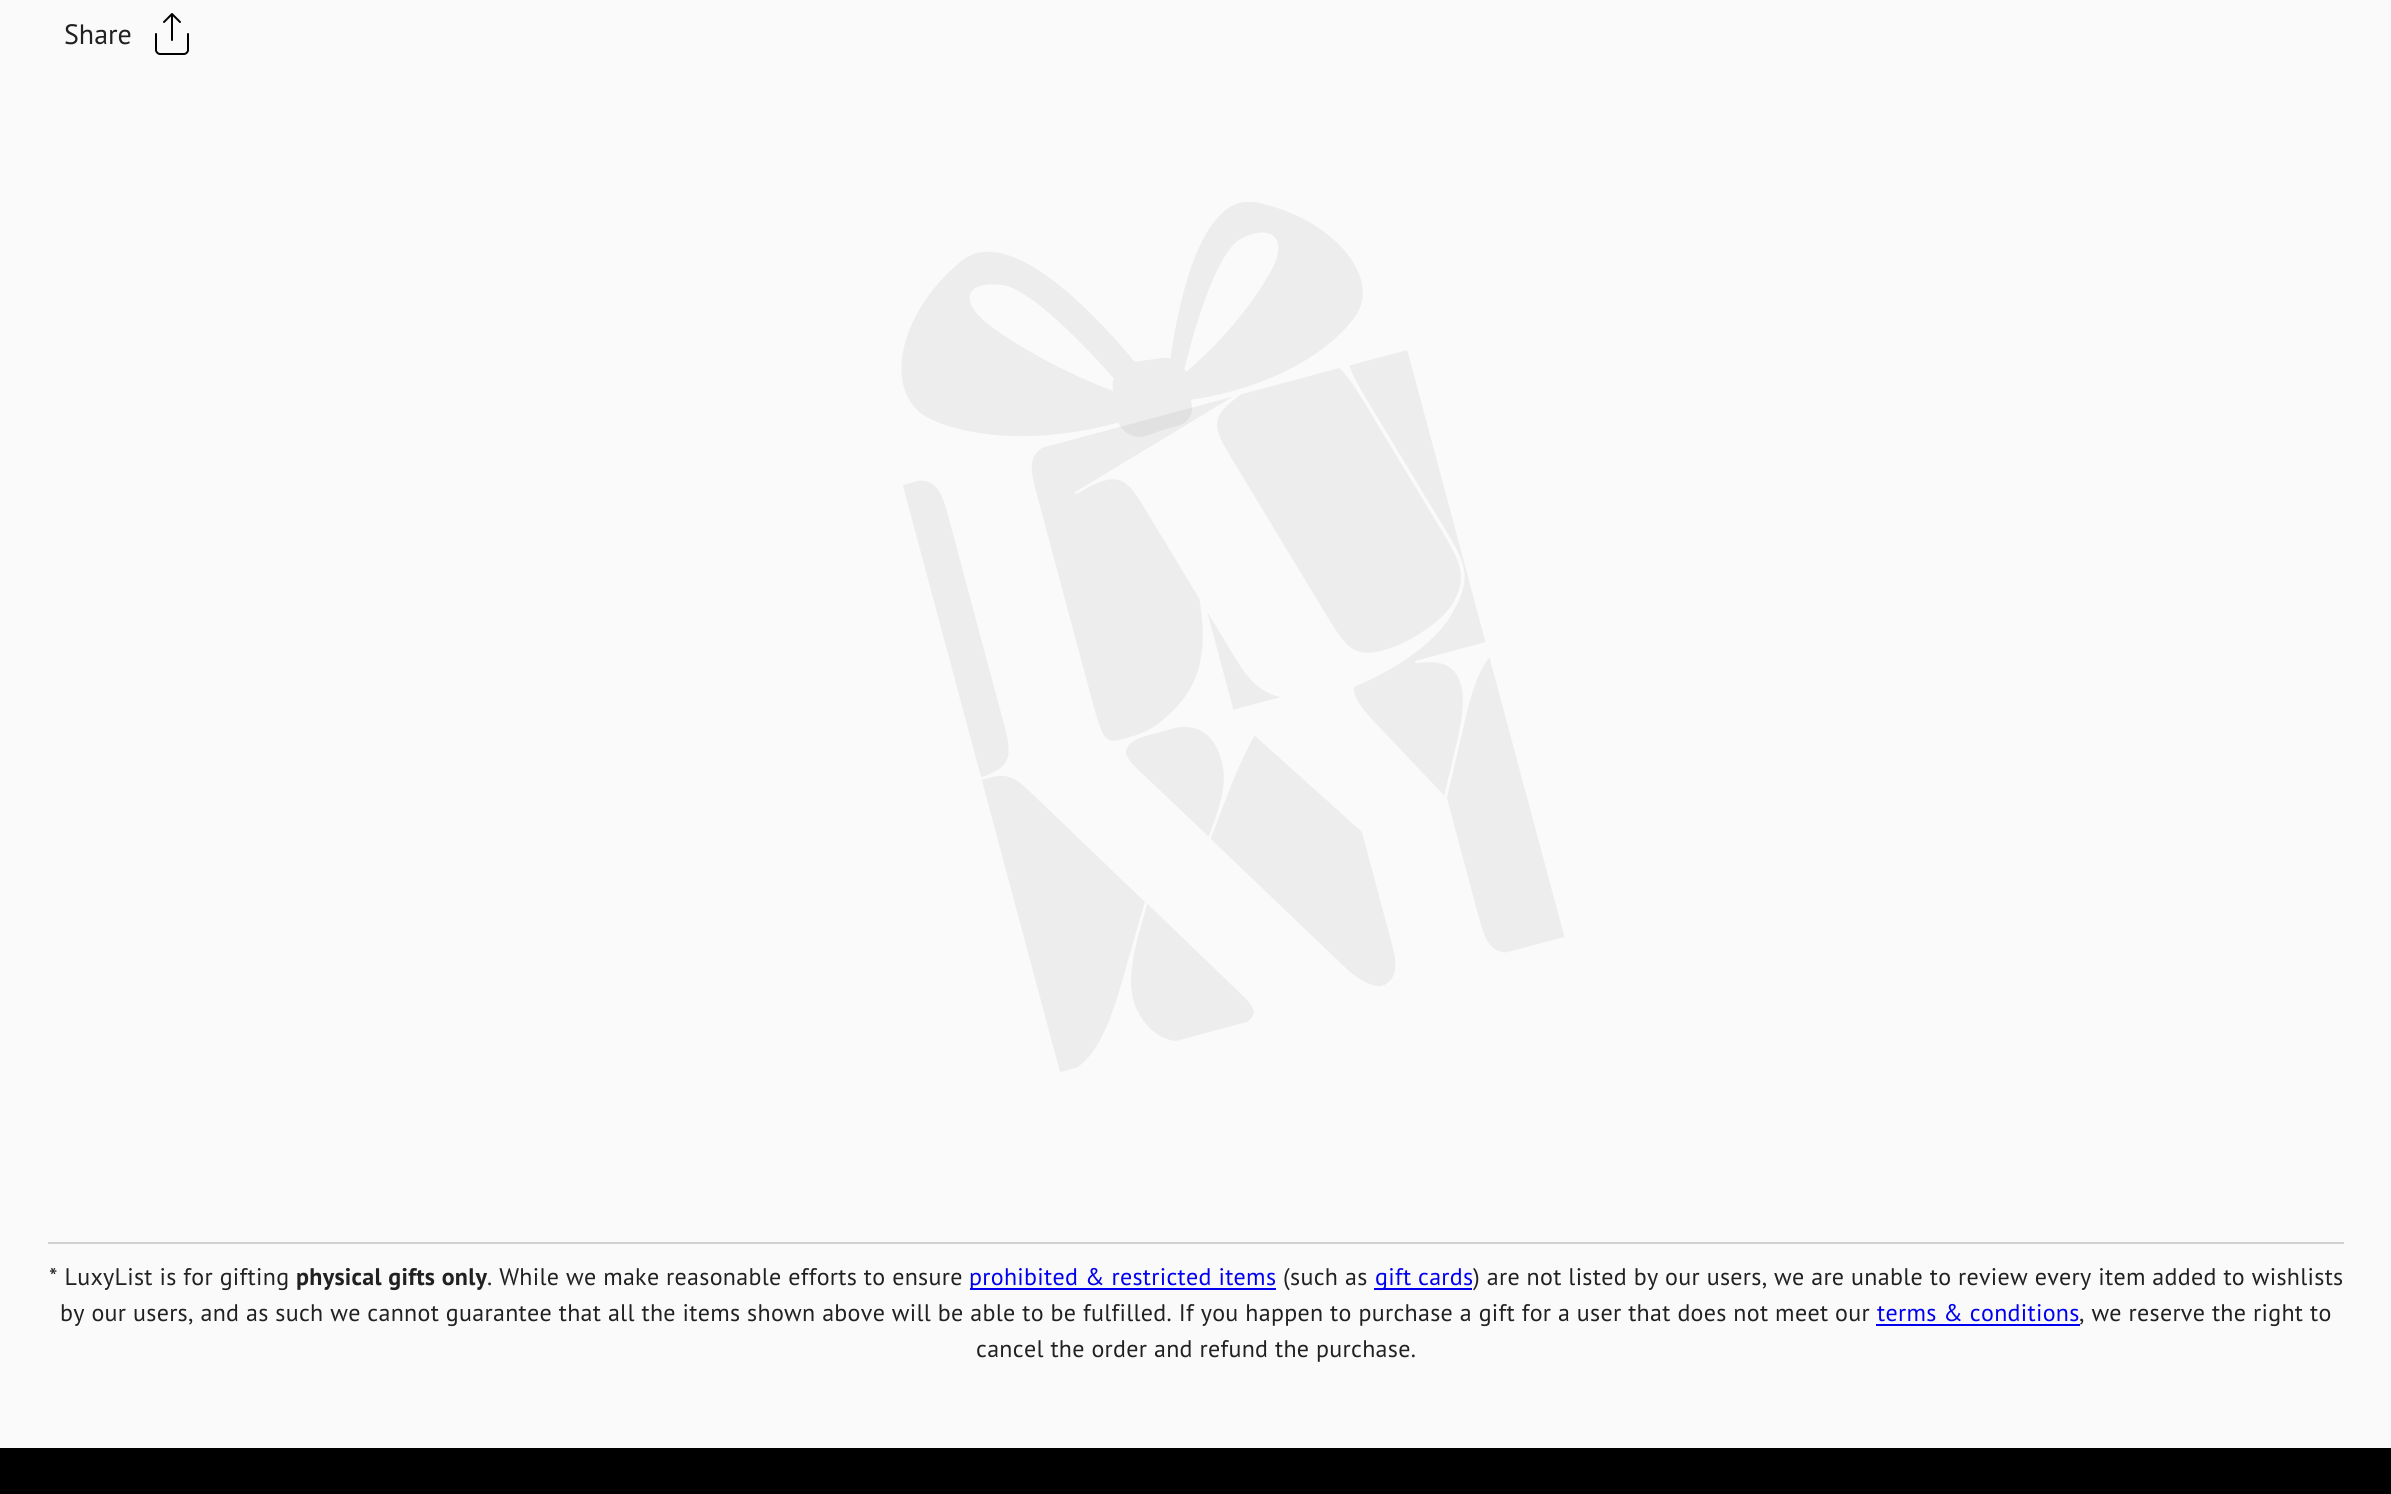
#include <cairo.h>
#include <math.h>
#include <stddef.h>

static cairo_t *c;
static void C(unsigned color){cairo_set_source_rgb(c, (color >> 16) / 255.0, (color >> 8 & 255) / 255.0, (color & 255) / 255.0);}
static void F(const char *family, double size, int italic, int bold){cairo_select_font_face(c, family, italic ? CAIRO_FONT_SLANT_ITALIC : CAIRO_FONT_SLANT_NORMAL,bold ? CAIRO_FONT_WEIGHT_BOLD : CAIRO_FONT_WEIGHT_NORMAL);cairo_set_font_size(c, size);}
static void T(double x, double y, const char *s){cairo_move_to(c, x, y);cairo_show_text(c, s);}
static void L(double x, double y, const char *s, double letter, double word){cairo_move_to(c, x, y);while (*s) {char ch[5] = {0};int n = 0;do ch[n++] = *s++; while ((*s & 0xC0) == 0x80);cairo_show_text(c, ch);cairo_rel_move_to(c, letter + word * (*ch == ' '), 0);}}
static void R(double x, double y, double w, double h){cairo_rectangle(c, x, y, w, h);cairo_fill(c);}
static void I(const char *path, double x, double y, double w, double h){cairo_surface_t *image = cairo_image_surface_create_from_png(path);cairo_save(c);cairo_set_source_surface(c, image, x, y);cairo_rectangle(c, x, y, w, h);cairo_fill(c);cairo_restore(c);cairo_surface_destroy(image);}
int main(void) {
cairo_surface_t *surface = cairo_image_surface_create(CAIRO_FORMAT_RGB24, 2391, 1494);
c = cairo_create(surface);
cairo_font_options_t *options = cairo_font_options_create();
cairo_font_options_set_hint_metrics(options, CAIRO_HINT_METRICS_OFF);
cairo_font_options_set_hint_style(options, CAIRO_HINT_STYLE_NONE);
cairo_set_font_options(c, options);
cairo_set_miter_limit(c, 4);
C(0xfafafa);
cairo_paint(c);
F("PT Sans",28,0,0);
C(0x212121);
T(64,44,"Share");
cairo_new_path(c);
cairo_move_to(c,156,34);
cairo_line_to(c,156,50);
cairo_curve_to(c,156,52,158,54,160,54);
cairo_line_to(c,184,54);
cairo_curve_to(c,186,54,188,52,188,50);
cairo_line_to(c,188,34);
cairo_move_to(c,180,22);
cairo_line_to(c,172,14);
cairo_line_to(c,164,22);
cairo_move_to(c,172,14);
cairo_line_to(c,172,40);
C(0x000000);
cairo_set_line_cap(c,CAIRO_LINE_CAP_ROUND);
cairo_set_line_join(c,CAIRO_LINE_JOIN_ROUND);
cairo_stroke(c);
I("1.png",901,202,663,870);
C(0xd1d1d1);
R(48,1242,2296,2);
F("PT Sans",24,0,0);
C(0x212121);
L(49,1285,"* LuxyList is for gifting",.3,0);
F("PT Sans",24,0,1);
L(296,1285,"physical gifts only",.3,0);
F("PT Sans",24,0,0);
L(487,1285,". While we make reasonable efforts to ensure",.3,0);
C(0x0000ee);
R(970,1288,306,2);
L(969,1285,"prohibited & restricted items",.3,0);
C(0x212121);
L(1283,1285,"(such as",.3,0);
C(0x0000ee);
R(1374,1288,98,2);
L(1375,1285,"gift cards",.3,0);
C(0x212121);
L(1473,1285,") are not listed by our users, we are unable to review every item added to wishlists",.3,0);
L(60,1321,"by our users, and as such we cannot guarantee that all the items shown above will be able to be fulfilled. If you happen to purchase a gift for a user that does not meet our",.3,0);
C(0x0000ee);
L(1877,1321,"terms & conditions",.3,0);
C(0x212121);
L(2079,1321,", we reserve the right to",.3,0);
C(0x0000ee);
R(1876,1324,204,2);
C(0x212121);
L(976,1357,"cancel the order and refund the purchase.",.3,0);
C(0x000000);
R(0,1448,2391,46);
cairo_surface_write_to_png(surface, "o.png");
cairo_font_options_destroy(options);
cairo_destroy(c);
cairo_surface_destroy(surface);
return 0;
}
